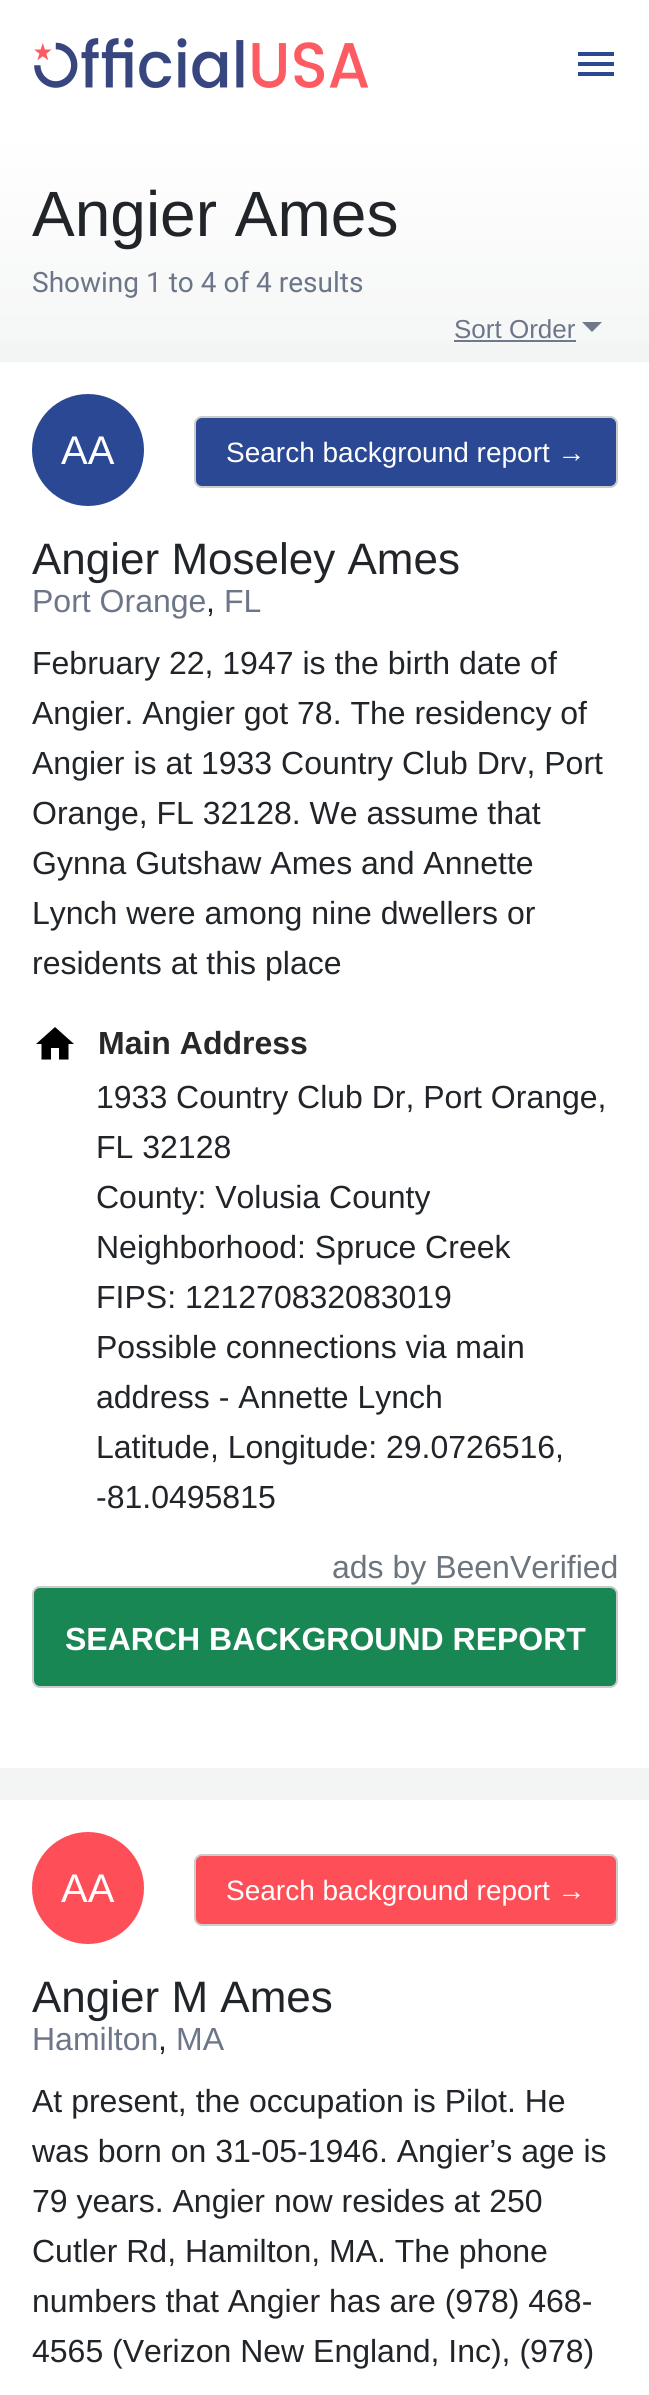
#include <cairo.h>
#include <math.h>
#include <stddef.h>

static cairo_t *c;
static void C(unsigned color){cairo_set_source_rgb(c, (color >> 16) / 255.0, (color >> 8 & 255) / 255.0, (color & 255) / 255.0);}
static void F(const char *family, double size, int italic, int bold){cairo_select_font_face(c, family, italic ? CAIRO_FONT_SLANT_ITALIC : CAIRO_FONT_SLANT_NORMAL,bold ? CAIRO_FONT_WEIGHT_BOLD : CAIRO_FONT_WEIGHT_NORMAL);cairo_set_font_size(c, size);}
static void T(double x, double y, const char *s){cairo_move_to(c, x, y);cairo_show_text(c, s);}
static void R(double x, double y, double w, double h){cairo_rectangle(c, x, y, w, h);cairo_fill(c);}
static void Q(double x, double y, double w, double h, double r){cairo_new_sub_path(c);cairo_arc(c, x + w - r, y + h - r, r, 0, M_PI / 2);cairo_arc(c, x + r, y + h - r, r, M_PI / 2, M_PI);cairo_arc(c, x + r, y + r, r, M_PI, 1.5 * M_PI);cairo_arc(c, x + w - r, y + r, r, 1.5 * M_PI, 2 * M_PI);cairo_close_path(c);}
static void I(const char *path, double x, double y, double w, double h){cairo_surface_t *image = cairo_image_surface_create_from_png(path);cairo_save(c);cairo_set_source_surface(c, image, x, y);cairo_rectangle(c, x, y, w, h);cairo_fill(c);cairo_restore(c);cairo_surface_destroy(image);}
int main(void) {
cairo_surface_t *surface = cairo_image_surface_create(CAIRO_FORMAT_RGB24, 649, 2395);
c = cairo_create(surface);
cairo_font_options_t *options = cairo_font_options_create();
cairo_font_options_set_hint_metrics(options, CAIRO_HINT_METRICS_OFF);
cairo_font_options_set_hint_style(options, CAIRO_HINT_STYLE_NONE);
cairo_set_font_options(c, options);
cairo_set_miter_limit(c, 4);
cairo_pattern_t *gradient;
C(0xf3f4f4);
cairo_paint(c);
C(0xffffff);
R(0,0,649,132);
I("1.png",34,38,335,51);
C(0x2a4893);
R(578,52,36,4);
R(578,62,36,4);
R(578,72,36,4);
gradient = cairo_pattern_create_linear(325,130,325,400);
cairo_pattern_add_color_stop_rgba(gradient,0,1,1,1,1);
cairo_pattern_add_color_stop_rgba(gradient,1,0.953,0.957,0.957,1);
cairo_set_source(c,gradient);
cairo_pattern_destroy(gradient);
R(0,132,649,212);
F("Liberation Sans",64,0,0);
C(0x212529);
T(32,236,"Angier Ames");
F("Roboto",28,0,0);
C(0x6d7589);
T(32,292,"Showing 1 to 4 of 4 results");
F("Liberation Sans",26,0,0);
T(454,338,"Sort Order");
C(0x70798b);
R(454,340,122,2);
cairo_new_path(c);
cairo_move_to(c,582,322);
cairo_line_to(c,602,322);
cairo_line_to(c,592,332);
cairo_close_path(c);
cairo_fill(c);
C(0xffffff);
R(0,362,649,1406);
C(0x2a4893);
cairo_arc(c,88,450,56,0,2 * M_PI);
cairo_fill(c);
F("Liberation Sans",40,0,0);
C(0xffffff);
T(61,464,"AA");
C(0x2a4893);
Q(195,417,422,70,7);
cairo_fill_preserve(c);
C(0xcccccc);
cairo_stroke(c);
F("Liberation Sans",28,0,0);
C(0xffffff);
T(226,462,"Search background report →");
F("Liberation Sans",44,0,0);
C(0x212529);
T(32,574,"Angier Moseley Ames");
F("Liberation Sans",32,0,0);
C(0x6d7589);
T(32,612,"Port Orange");
C(0x212529);
T(206,612,",");
C(0x6d7589);
T(224,612,"FL");
C(0x212529);
T(32,674,"February 22, 1947 is the birth date of");
T(32,724,"Angier. Angier got 78. The residency of");
T(32,774,"Angier is at 1933 Country Club Drv, Port");
T(32,824,"Orange, FL 32128. We assume that");
T(32,874,"Gynna Gutshaw Ames and Annette");
T(32,924,"Lynch were among nine dwellers or");
T(32,974,"residents at this place");
C(0x000000);
cairo_new_path(c);
cairo_move_to(c,51,1059.5);
cairo_line_to(c,51,1048);
cairo_line_to(c,59,1048);
cairo_line_to(c,59,1059.5);
cairo_line_to(c,68.5,1059.5);
cairo_line_to(c,68.5,1044);
cairo_line_to(c,74,1044);
cairo_line_to(c,55,1027);
cairo_line_to(c,36,1044);
cairo_line_to(c,41.5,1044);
cairo_line_to(c,41.5,1059.5);
cairo_close_path(c);
cairo_fill(c);
F("Liberation Sans",32,0,1);
C(0x282828);
T(98,1054,"Main Address");
F("Liberation Sans",32,0,0);
C(0x212529);
T(96,1108,"1933 Country Club Dr, Port Orange,");
T(96,1158,"FL 32128");
T(96,1208,"County: Volusia County");
T(96,1258,"Neighborhood: Spruce Creek");
T(96,1308,"FIPS: 121270832083019");
T(96,1358,"Possible connections via main");
T(96,1408,"address - Annette Lynch");
T(96,1458,"Latitude, Longitude: 29.0726516,");
T(96,1508,"-81.0495815");
C(0x6c757d);
T(332,1578,"ads by BeenVerified");
C(0x198754);
Q(33,1587,584,100,7);
cairo_fill_preserve(c);
C(0xcccccc);
cairo_stroke(c);
F("Liberation Sans",32,0,1);
C(0xffffff);
T(65,1650,"SEARCH BACKGROUND REPORT");
R(0,1800,649,595);
C(0xfe4f58);
cairo_new_path(c);
cairo_arc(c,88,1888,56,0,2 * M_PI);
cairo_fill(c);
F("Liberation Sans",40,0,0);
C(0xffffff);
T(61,1902,"AA");
C(0xfe4f58);
Q(195,1855,422,70,7);
cairo_fill_preserve(c);
C(0xcccccc);
cairo_stroke(c);
F("Liberation Sans",28,0,0);
C(0xffffff);
T(226,1900,"Search background report →");
F("Liberation Sans",44,0,0);
C(0x212529);
T(32,2012,"Angier M Ames");
F("Liberation Sans",32,0,0);
C(0x6d7589);
T(32,2050,"Hamilton");
C(0x212529);
T(158,2050,",");
C(0x6d7589);
T(176,2050,"MA");
C(0x212529);
T(32,2112,"At present, the occupation is Pilot. He");
T(32,2162,"was born on 31-05-1946. Angier’s age is");
T(32,2212,"79 years. Angier now resides at 250");
T(32,2262,"Cutler Rd, Hamilton, MA. The phone");
T(32,2312,"numbers that Angier has are (978) 468-");
T(32,2362,"4565 (Verizon New England, Inc), (978)");
cairo_surface_write_to_png(surface, "o.png");
cairo_font_options_destroy(options);
cairo_destroy(c);
cairo_surface_destroy(surface);
return 0;
}
